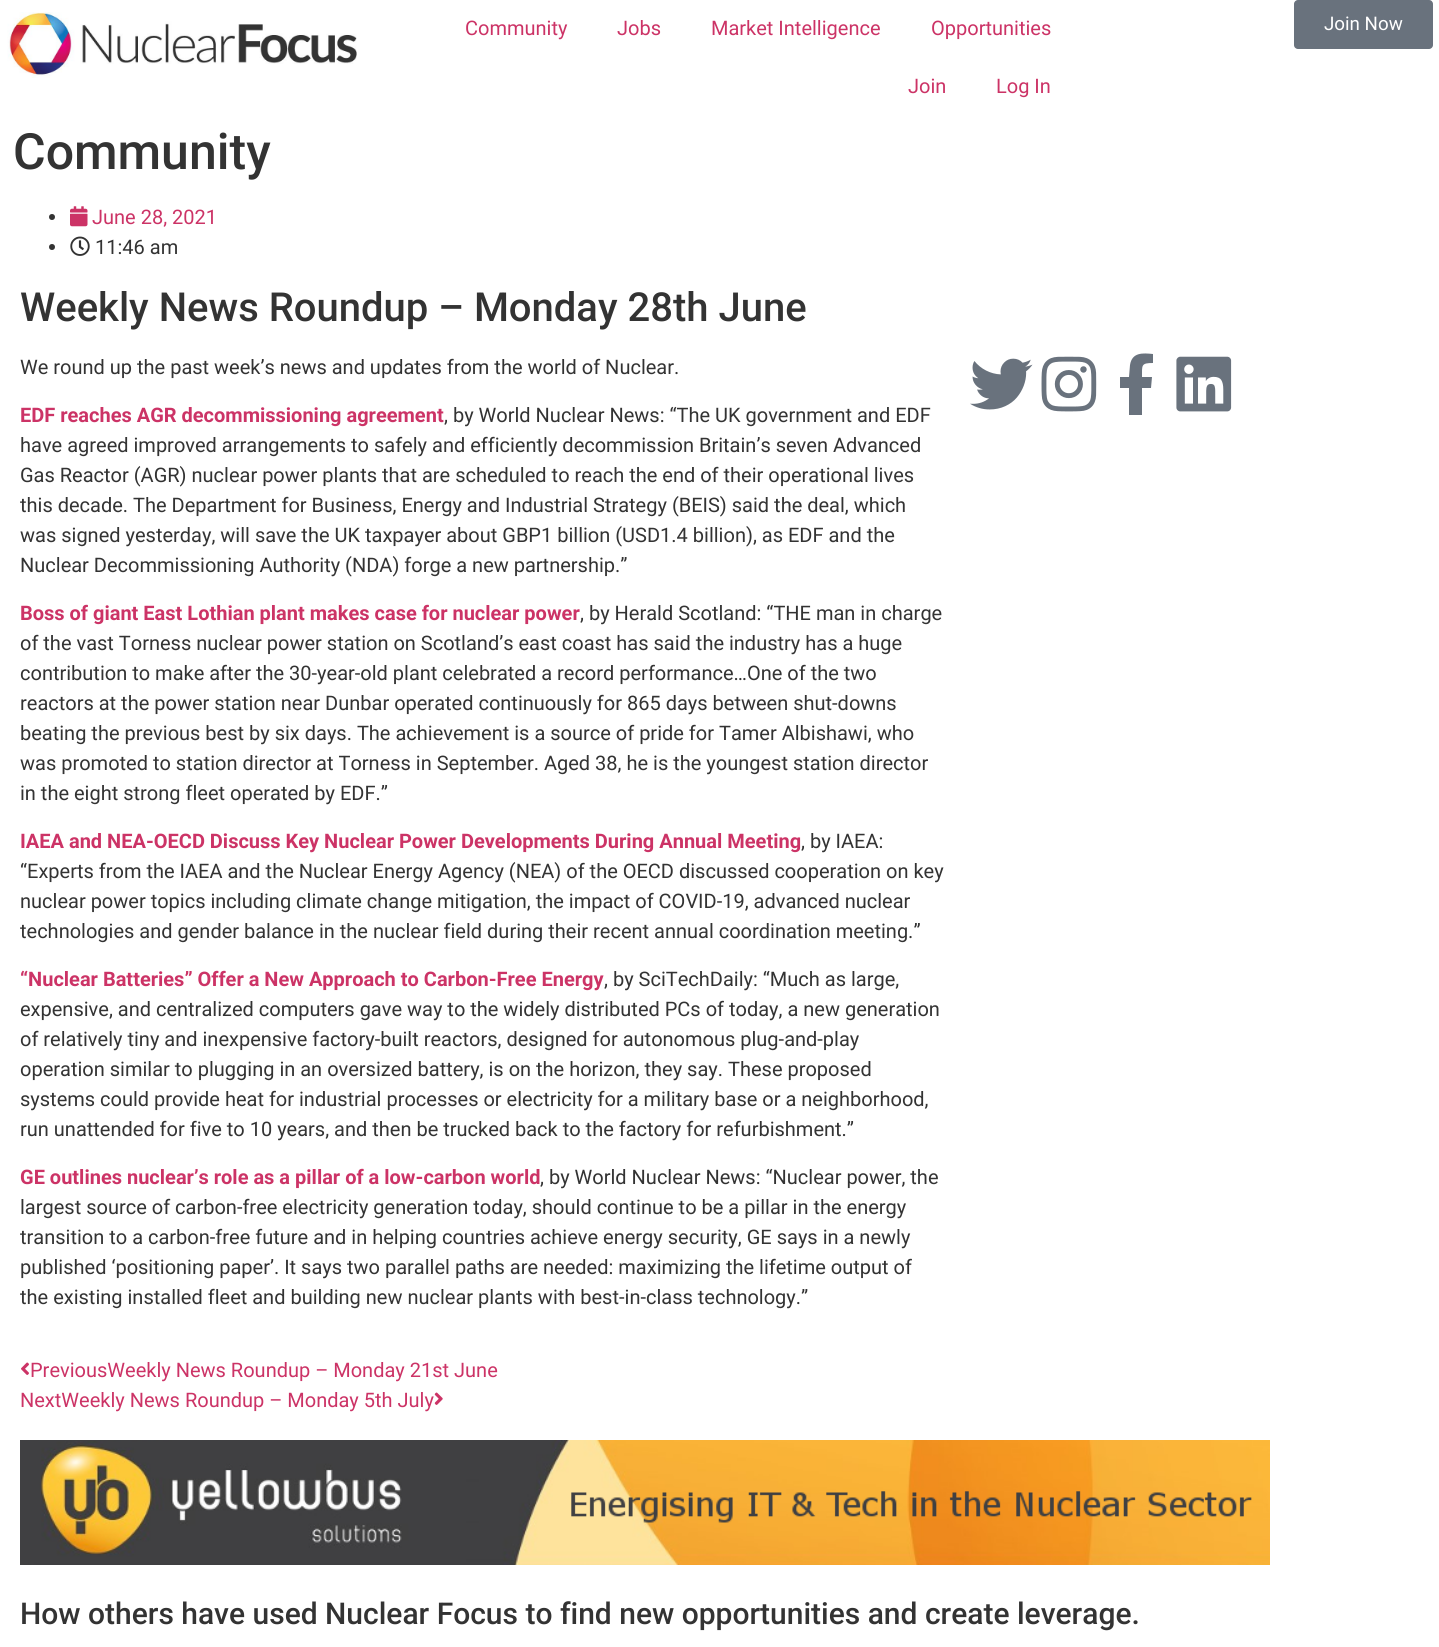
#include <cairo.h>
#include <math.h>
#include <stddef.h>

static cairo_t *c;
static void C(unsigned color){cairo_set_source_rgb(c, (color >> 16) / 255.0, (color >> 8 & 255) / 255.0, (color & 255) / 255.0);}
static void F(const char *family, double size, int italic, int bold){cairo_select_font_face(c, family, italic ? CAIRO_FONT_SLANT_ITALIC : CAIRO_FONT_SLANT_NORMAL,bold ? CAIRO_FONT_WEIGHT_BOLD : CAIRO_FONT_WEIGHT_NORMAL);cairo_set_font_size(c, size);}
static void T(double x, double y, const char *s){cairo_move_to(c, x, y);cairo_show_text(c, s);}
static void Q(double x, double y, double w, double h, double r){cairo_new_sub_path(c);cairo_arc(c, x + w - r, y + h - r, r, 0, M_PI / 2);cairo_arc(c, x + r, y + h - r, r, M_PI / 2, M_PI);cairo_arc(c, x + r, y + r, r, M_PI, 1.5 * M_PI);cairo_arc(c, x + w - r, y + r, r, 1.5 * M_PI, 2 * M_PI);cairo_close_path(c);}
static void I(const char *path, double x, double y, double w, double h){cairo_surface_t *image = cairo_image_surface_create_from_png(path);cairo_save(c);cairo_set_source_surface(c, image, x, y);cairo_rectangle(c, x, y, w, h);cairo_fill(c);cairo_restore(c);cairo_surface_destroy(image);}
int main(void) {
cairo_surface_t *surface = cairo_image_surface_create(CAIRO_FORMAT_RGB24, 1439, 1647);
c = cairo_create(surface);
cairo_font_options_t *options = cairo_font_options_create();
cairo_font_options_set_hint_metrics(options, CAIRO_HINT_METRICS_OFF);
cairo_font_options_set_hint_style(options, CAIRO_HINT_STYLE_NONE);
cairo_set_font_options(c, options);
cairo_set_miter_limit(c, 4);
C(0xffffff);
cairo_paint(c);
I("1.png",7,12,350,66);
F("Roboto",20,0,0);
C(0xcc3366);
T(465,35,"Community");
T(617,35,"Jobs");
T(711,35,"Market Intelligence");
T(931,35,"Opportunities");
T(908,93,"Join");
T(996,93,"Log In");
C(0x69727d);
Q(1294,0,139,49,4);
cairo_fill(c);
F("Roboto",18.75,0,0);
C(0xffffff);
T(1324,30,"Join Now");
F("Roboto Medium",50,0,0);
C(0x333333);
T(13,169,"Community");
cairo_new_path(c);
cairo_arc(c,52,217,3,0,2 * M_PI);
cairo_fill(c);
I("2.png",70,206,18,21);
F("Roboto",20,0,0);
C(0xcc3366);
T(92,224,"June 28, 2021");
C(0x333333);
cairo_new_path(c);
cairo_arc(c,52,247,3,0,2 * M_PI);
cairo_fill(c);
I("3.png",70,236,20,20);
T(95,254,"11:46 am");
F("Roboto Medium",40,0,0);
T(20,321,"Weekly News Roundup – Monday 28th June");
F("Roboto",20,0,0);
T(20,374,"We round up the past week’s news and updates from the world of Nuclear.");
F("Roboto",20,0,1);
C(0xcc3366);
T(20,422,"EDF reaches AGR decommissioning agreement");
F("Roboto",20,0,0);
C(0x333333);
T(444,422,", by World Nuclear News: “The UK government and EDF");
T(20,452,"have agreed improved arrangements to safely and efficiently decommission Britain’s seven Advanced");
T(20,482,"Gas Reactor (AGR) nuclear power plants that are scheduled to reach the end of their operational lives");
T(20,512,"this decade. The Department for Business, Energy and Industrial Strategy (BEIS) said the deal, which");
T(20,542,"was signed yesterday, will save the UK taxpayer about GBP1 billion (USD1.4 billion), as EDF and the");
T(20,572,"Nuclear Decommissioning Authority (NDA) forge a new partnership.”");
F("Roboto",20,0,1);
C(0xcc3366);
T(20,620,"Boss of giant East Lothian plant makes case for nuclear power");
F("Roboto",20,0,0);
C(0x333333);
T(580,620,", by Herald Scotland: “THE man in charge");
T(20,650,"of the vast Torness nuclear power station on Scotland’s east coast has said the industry has a huge");
T(20,680,"contribution to make after the 30-year-old plant celebrated a record performance…One of the two");
T(20,710,"reactors at the power station near Dunbar operated continuously for 865 days between shut-downs");
T(20,740,"beating the previous best by six days. The achievement is a source of pride for Tamer Albishawi, who");
T(20,770,"was promoted to station director at Torness in September. Aged 38, he is the youngest station director");
T(20,800,"in the eight strong fleet operated by EDF.”");
F("Roboto",20,0,1);
C(0xcc3366);
T(20,848,"IAEA and NEA-OECD Discuss Key Nuclear Power Developments During Annual Meeting");
F("Roboto",20,0,0);
C(0x333333);
T(801,848,", by IAEA:");
T(20,878,"“Experts from the IAEA and the Nuclear Energy Agency (NEA) of the OECD discussed cooperation on key");
T(20,908,"nuclear power topics including climate change mitigation, the impact of COVID-19, advanced nuclear");
T(20,938,"technologies and gender balance in the nuclear field during their recent annual coordination meeting.”");
F("Roboto",20,0,1);
C(0xcc3366);
T(20,986,"“Nuclear Batteries” Offer a New Approach to Carbon-Free Energy");
F("Roboto",20,0,0);
C(0x333333);
T(604,986,", by SciTechDaily: “Much as large,");
T(20,1016,"expensive, and centralized computers gave way to the widely distributed PCs of today, a new generation");
T(20,1046,"of relatively tiny and inexpensive factory-built reactors, designed for autonomous plug-and-play");
T(20,1076,"operation similar to plugging in an oversized battery, is on the horizon, they say. These proposed");
T(20,1106,"systems could provide heat for industrial processes or electricity for a military base or a neighborhood,");
T(20,1136,"run unattended for five to 10 years, and then be trucked back to the factory for refurbishment.”");
F("Roboto",20,0,1);
C(0xcc3366);
T(20,1184,"GE outlines nuclear’s role as a pillar of a low-carbon world");
F("Roboto",20,0,0);
C(0x333333);
T(540,1184,", by World Nuclear News: “Nuclear power, the");
T(20,1214,"largest source of carbon-free electricity generation today, should continue to be a pillar in the energy");
T(20,1244,"transition to a carbon-free future and in helping countries achieve energy security, GE says in a newly");
T(20,1274,"published ‘positioning paper’. It says two parallel paths are needed: maximizing the lifetime output of");
T(20,1304,"the existing installed fleet and building new nuclear plants with best-in-class technology.”");
I("4.png",21,1362,8,13);
C(0xcc3366);
T(30,1377,"PreviousWeekly News Roundup – Monday 21st June");
T(20,1407,"NextWeekly News Roundup – Monday 5th July");
I("5.png",434,1392,9,13);
I("6.png",970,358,63,52);
I("7.png",1041,356,56,56);
C(0x69727d);
cairo_new_path(c);
cairo_move_to(c,1151,388);
cairo_line_to(c,1142,388);
cairo_line_to(c,1142,415);
cairo_line_to(c,1129,415);
cairo_line_to(c,1129,388);
cairo_line_to(c,1120,388);
cairo_line_to(c,1120,377);
cairo_line_to(c,1129,377);
cairo_line_to(c,1130,365);
cairo_curve_to(c,1132,352,1143,353,1153,354);
cairo_line_to(c,1153,363);
cairo_curve_to(c,1141,363,1142,365,1142,377);
cairo_line_to(c,1152,377);
cairo_close_path(c);
cairo_fill(c);
I("8.png",1176,356,56,56);
I("9.png",20,1440,1250,125);
F("Roboto Medium",30,0,0);
C(0x333333);
T(20,1624,"How others have used Nuclear Focus to find new opportunities and create leverage.");
cairo_surface_write_to_png(surface, "o.png");
cairo_font_options_destroy(options);
cairo_destroy(c);
cairo_surface_destroy(surface);
return 0;
}
